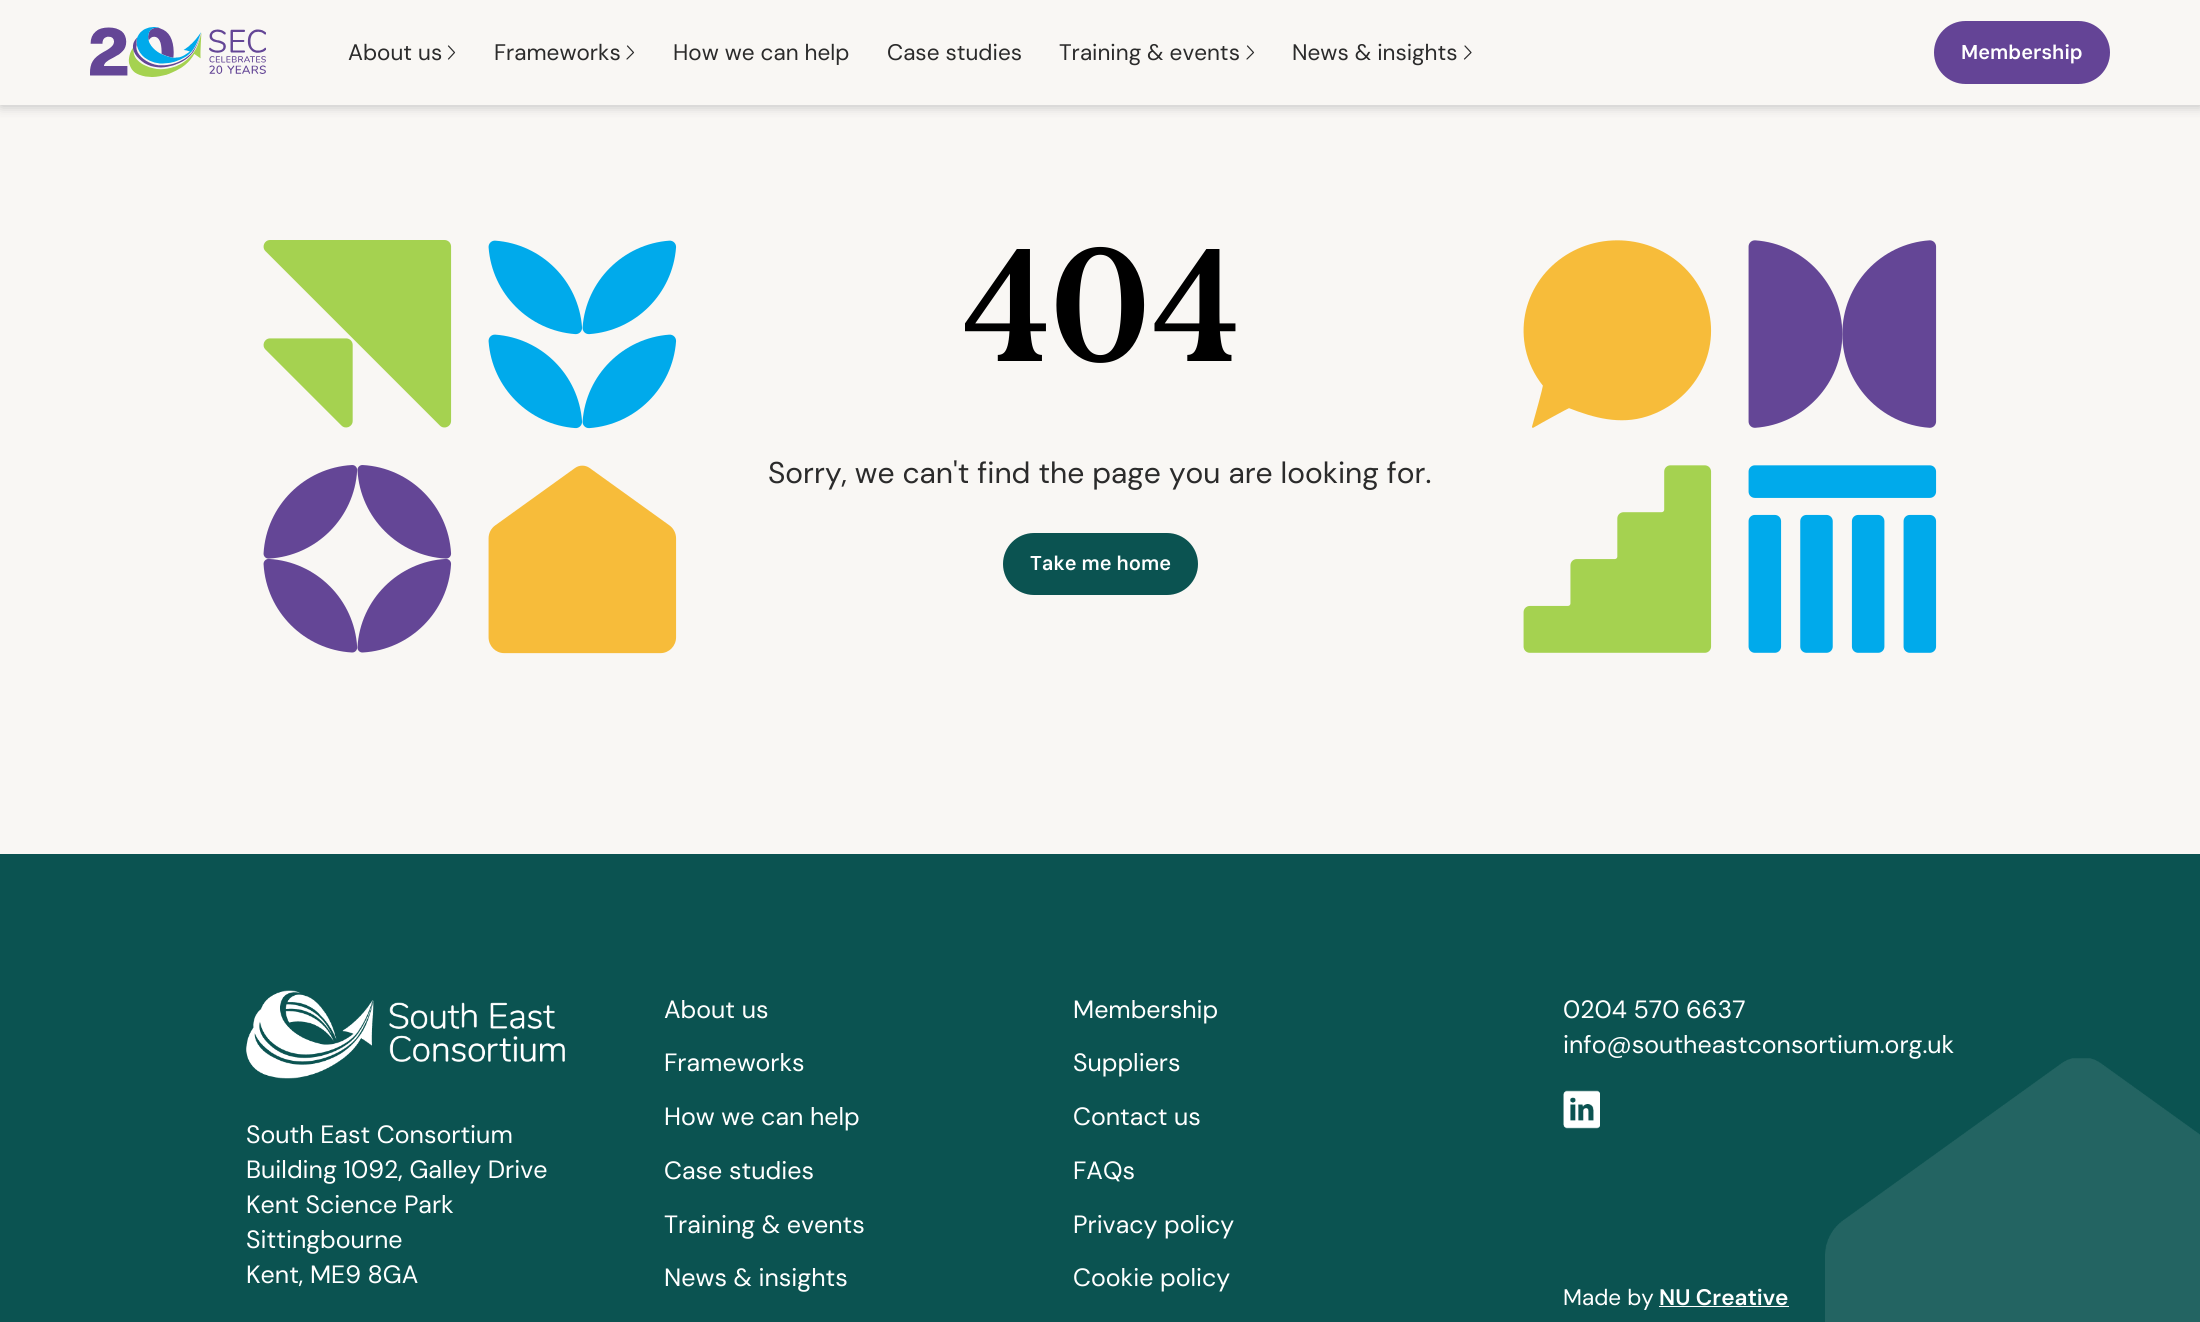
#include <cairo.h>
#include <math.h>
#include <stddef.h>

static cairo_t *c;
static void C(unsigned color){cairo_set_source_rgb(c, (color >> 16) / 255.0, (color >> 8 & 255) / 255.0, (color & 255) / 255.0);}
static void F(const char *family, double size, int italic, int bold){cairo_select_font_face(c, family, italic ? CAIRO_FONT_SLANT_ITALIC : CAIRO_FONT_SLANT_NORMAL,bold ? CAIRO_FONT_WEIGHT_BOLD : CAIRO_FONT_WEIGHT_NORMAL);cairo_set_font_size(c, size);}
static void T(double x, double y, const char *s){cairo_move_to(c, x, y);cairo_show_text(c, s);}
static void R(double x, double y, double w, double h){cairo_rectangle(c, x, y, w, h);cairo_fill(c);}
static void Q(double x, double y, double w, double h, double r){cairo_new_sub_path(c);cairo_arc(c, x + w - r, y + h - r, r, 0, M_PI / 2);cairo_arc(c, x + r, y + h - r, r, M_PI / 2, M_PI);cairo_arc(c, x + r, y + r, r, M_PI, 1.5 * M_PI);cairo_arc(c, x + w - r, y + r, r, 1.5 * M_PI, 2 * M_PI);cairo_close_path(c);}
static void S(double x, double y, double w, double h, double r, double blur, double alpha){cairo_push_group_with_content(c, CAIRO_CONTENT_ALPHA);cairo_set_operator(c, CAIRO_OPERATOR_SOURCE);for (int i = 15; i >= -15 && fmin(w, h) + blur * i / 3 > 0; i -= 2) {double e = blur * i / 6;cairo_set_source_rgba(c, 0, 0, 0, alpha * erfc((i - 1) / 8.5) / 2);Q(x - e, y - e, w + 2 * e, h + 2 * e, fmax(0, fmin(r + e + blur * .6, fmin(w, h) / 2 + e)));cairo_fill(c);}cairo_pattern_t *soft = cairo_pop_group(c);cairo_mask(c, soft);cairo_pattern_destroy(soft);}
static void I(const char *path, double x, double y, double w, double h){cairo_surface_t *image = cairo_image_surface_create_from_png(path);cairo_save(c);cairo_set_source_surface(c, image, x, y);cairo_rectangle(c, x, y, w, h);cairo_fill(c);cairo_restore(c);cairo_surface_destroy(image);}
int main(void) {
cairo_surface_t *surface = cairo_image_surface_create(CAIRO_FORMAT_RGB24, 2200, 1322);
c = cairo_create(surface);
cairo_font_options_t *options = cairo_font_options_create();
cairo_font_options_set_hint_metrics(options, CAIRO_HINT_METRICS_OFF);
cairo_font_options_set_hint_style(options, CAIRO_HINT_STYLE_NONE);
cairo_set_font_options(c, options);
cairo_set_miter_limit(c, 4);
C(0xf9f7f4);
cairo_paint(c);
cairo_save(c);
cairo_rectangle(c,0,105,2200,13);
cairo_clip(c);
C(0xbdbdbd);
S(1,1,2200,105,0,6,1);
cairo_restore(c);
I("1.png",90,27,176,50);
F("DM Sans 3",22.5,0,0);
C(0x2b2b2b);
T(348,60,"About us");
cairo_new_path(c);
cairo_move_to(c,448.5,46);
cairo_line_to(c,454.5,52.5);
cairo_line_to(c,448.5,59);
cairo_set_line_width(c,1.2);
cairo_set_line_cap(c,CAIRO_LINE_CAP_ROUND);
cairo_set_line_join(c,CAIRO_LINE_JOIN_ROUND);
cairo_stroke(c);
T(494,60,"Frameworks");
cairo_new_path(c);
cairo_move_to(c,627.5,46);
cairo_line_to(c,633.5,52.5);
cairo_line_to(c,627,59);
cairo_stroke(c);
T(673,60,"How we can help");
T(887,60,"Case studies");
T(1059,60,"Training & events");
cairo_new_path(c);
cairo_move_to(c,1247.5,46);
cairo_line_to(c,1253.5,52.5);
cairo_line_to(c,1247,59);
cairo_stroke(c);
T(1292,60,"News & insights");
cairo_new_path(c);
cairo_move_to(c,1465,46);
cairo_line_to(c,1471,52.5);
cairo_line_to(c,1464.5,59);
cairo_stroke(c);
C(0x644496);
Q(1935.5,22.5,173,60,30);
cairo_fill_preserve(c);
cairo_set_line_width(c,3);
cairo_set_line_cap(c,CAIRO_LINE_CAP_BUTT);
cairo_set_line_join(c,CAIRO_LINE_JOIN_MITER);
cairo_stroke(c);
F("DM Sans SemiBold",20,0,0);
C(0xffffff);
T(1961,59,"Membership");
I("2.png",263,240,414,414);
F("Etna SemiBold",160,0,0);
C(0x000000);
T(961,361,"404");
F("DM Sans",30,0,0);
C(0x2b2b2b);
T(768,483,"Sorry, we can't find the page you are looking for.");
C(0x0b5351);
Q(1004.5,534.5,192,59,29.5);
cairo_fill_preserve(c);
cairo_stroke(c);
F("DM Sans SemiBold",20,0,0);
C(0xffffff);
T(1030,570,"Take me home");
I("3.png",1523,240,414,413);
C(0x0b5351);
R(0,854,2200,468);
I("4.png",1825,1058,375,264);
I("5.png",246,990,319,89);
F("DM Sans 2",25,0,0);
C(0xffffff);
T(246,1143,"South East Consortium");
T(246,1178,"Building 1092, Galley Drive");
T(246,1213,"Kent Science Park");
T(246,1248,"Sittingbourne");
T(246,1283,"Kent, ME9 8GA");
T(664,1018,"About us");
T(1073,1018,"Membership");
T(664,1071,"Frameworks");
T(1073,1071,"Suppliers");
T(664,1125,"How we can help");
T(1073,1125,"Contact us");
T(664,1179,"Case studies");
T(1073,1179,"FAQs");
T(664,1233,"Training & events");
T(1073,1233,"Privacy policy");
T(664,1286,"News & insights");
T(1073,1286,"Cookie policy");
T(1563,1018,"0204 570 6637");
T(1563,1053,"info@southeastconsortium.org.uk");
I("6.png",1563,1090,37,39);
F("DM Sans 3",22.5,0,0);
T(1563,1305,"Made by");
F("DM Sans 2 SemiBold",22.5,0,0);
T(1659,1305,"NU Creative");
R(1659,1306,130,1);
cairo_surface_write_to_png(surface, "o.png");
cairo_font_options_destroy(options);
cairo_destroy(c);
cairo_surface_destroy(surface);
return 0;
}
